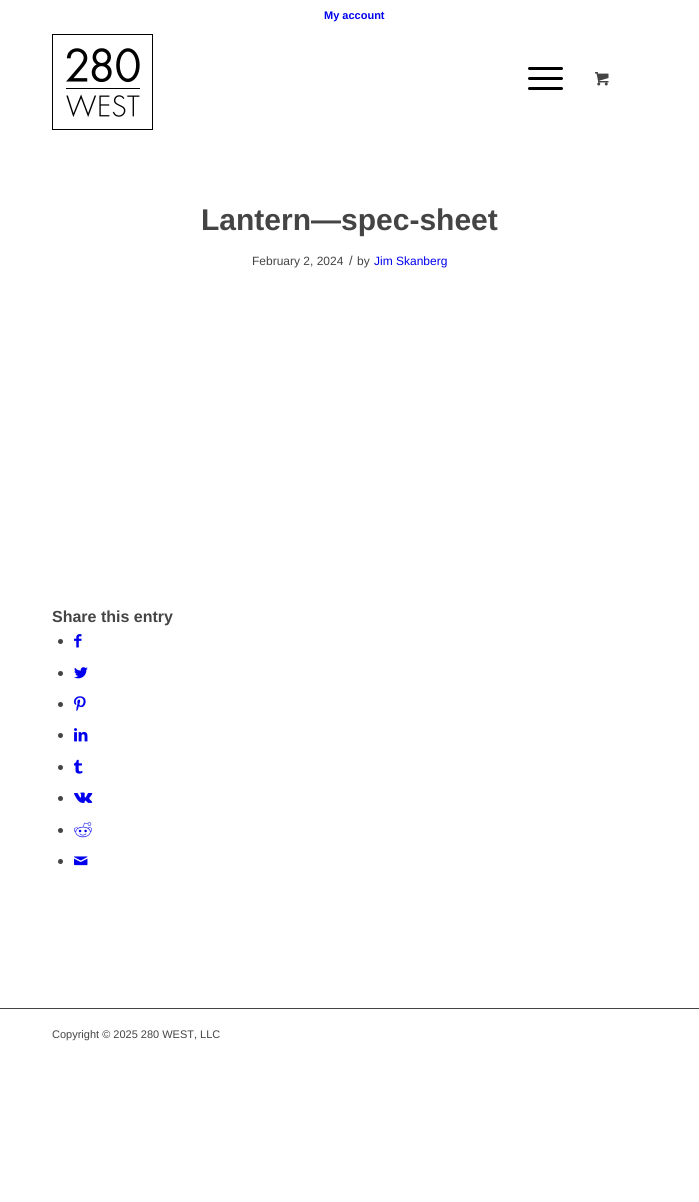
#include <cairo.h>
#include <math.h>
#include <stddef.h>

static cairo_t *c;
static void C(unsigned color){cairo_set_source_rgb(c, (color >> 16) / 255.0, (color >> 8 & 255) / 255.0, (color & 255) / 255.0);}
static void F(const char *family, double size, int italic, int bold){cairo_select_font_face(c, family, italic ? CAIRO_FONT_SLANT_ITALIC : CAIRO_FONT_SLANT_NORMAL,bold ? CAIRO_FONT_WEIGHT_BOLD : CAIRO_FONT_WEIGHT_NORMAL);cairo_set_font_size(c, size);}
static void T(double x, double y, const char *s){cairo_move_to(c, x, y);cairo_show_text(c, s);}
static void R(double x, double y, double w, double h){cairo_rectangle(c, x, y, w, h);cairo_fill(c);}
static void Q(double x, double y, double w, double h, double r){cairo_new_sub_path(c);cairo_arc(c, x + w - r, y + h - r, r, 0, M_PI / 2);cairo_arc(c, x + r, y + h - r, r, M_PI / 2, M_PI);cairo_arc(c, x + r, y + r, r, M_PI, 1.5 * M_PI);cairo_arc(c, x + w - r, y + r, r, 1.5 * M_PI, 2 * M_PI);cairo_close_path(c);}
static void I(const char *path, double x, double y, double w, double h){cairo_surface_t *image = cairo_image_surface_create_from_png(path);cairo_save(c);cairo_set_source_surface(c, image, x, y);cairo_rectangle(c, x, y, w, h);cairo_fill(c);cairo_restore(c);cairo_surface_destroy(image);}
int main(void) {
cairo_surface_t *surface = cairo_image_surface_create(CAIRO_FORMAT_RGB24, 699, 1202);
c = cairo_create(surface);
cairo_font_options_t *options = cairo_font_options_create();
cairo_font_options_set_hint_metrics(options, CAIRO_HINT_METRICS_OFF);
cairo_font_options_set_hint_style(options, CAIRO_HINT_STYLE_NONE);
cairo_set_font_options(c, options);
cairo_set_miter_limit(c, 4);
C(0xffffff);
cairo_paint(c);
F("Liberation Sans",11,0,1);
C(0x0000ee);
T(324,19,"My account");
I("1.png",52,34,101,96);
C(0x000000);
Q(528,77,35,3,1.5);
cairo_fill(c);
Q(528,67,35,3,1.5);
cairo_fill(c);
Q(528,87,35,3,1.5);
cairo_fill(c);
I("2.png",595,72,14,14);
F("Liberation Sans",30,0,1);
C(0x444444);
T(201,230,"Lantern—spec-sheet");
F("Liberation Sans",12,0,0);
T(252,265,"February 2, 2024");
F("Liberation Sans",13,0,0);
T(349,265,"/");
F("Liberation Sans",12,0,0);
T(357,265,"by");
C(0x0000ee);
T(374,265,"Jim Skanberg");
F("Liberation Sans",16,0,1);
C(0x444444);
T(52,622,"Share this entry");
cairo_new_path(c);
cairo_arc(c,60.5,641.5,2.5,0,2 * M_PI);
cairo_fill(c);
I("3.png",74,634,8,14);
cairo_arc(c,60.5,673.5,2.5,0,2 * M_PI);
cairo_fill(c);
I("4.png",74,667,14,12);
cairo_arc(c,60.5,704.5,2.5,0,2 * M_PI);
cairo_fill(c);
I("5.png",74,696,12,16);
cairo_arc(c,60.5,735.5,2.5,0,2 * M_PI);
cairo_fill(c);
I("6.png",74,728,14,14);
cairo_arc(c,60.5,767.5,2.5,0,2 * M_PI);
cairo_fill(c);
I("7.png",74,759,9,15);
cairo_arc(c,60.5,798.5,2.5,0,2 * M_PI);
cairo_fill(c);
I("8.png",74,792,19,11);
cairo_arc(c,60.5,830.5,2.5,0,2 * M_PI);
cairo_fill(c);
I("9.png",74,822,18,16);
cairo_arc(c,60.5,861.5,2.5,0,2 * M_PI);
cairo_fill(c);
I("10.png",74,856,14,10);
R(0,1008,699,1);
F("Liberation Sans",11,0,0);
T(52,1038,"Copyright © 2025 280 WEST, LLC");
cairo_surface_write_to_png(surface, "o.png");
cairo_font_options_destroy(options);
cairo_destroy(c);
cairo_surface_destroy(surface);
return 0;
}
